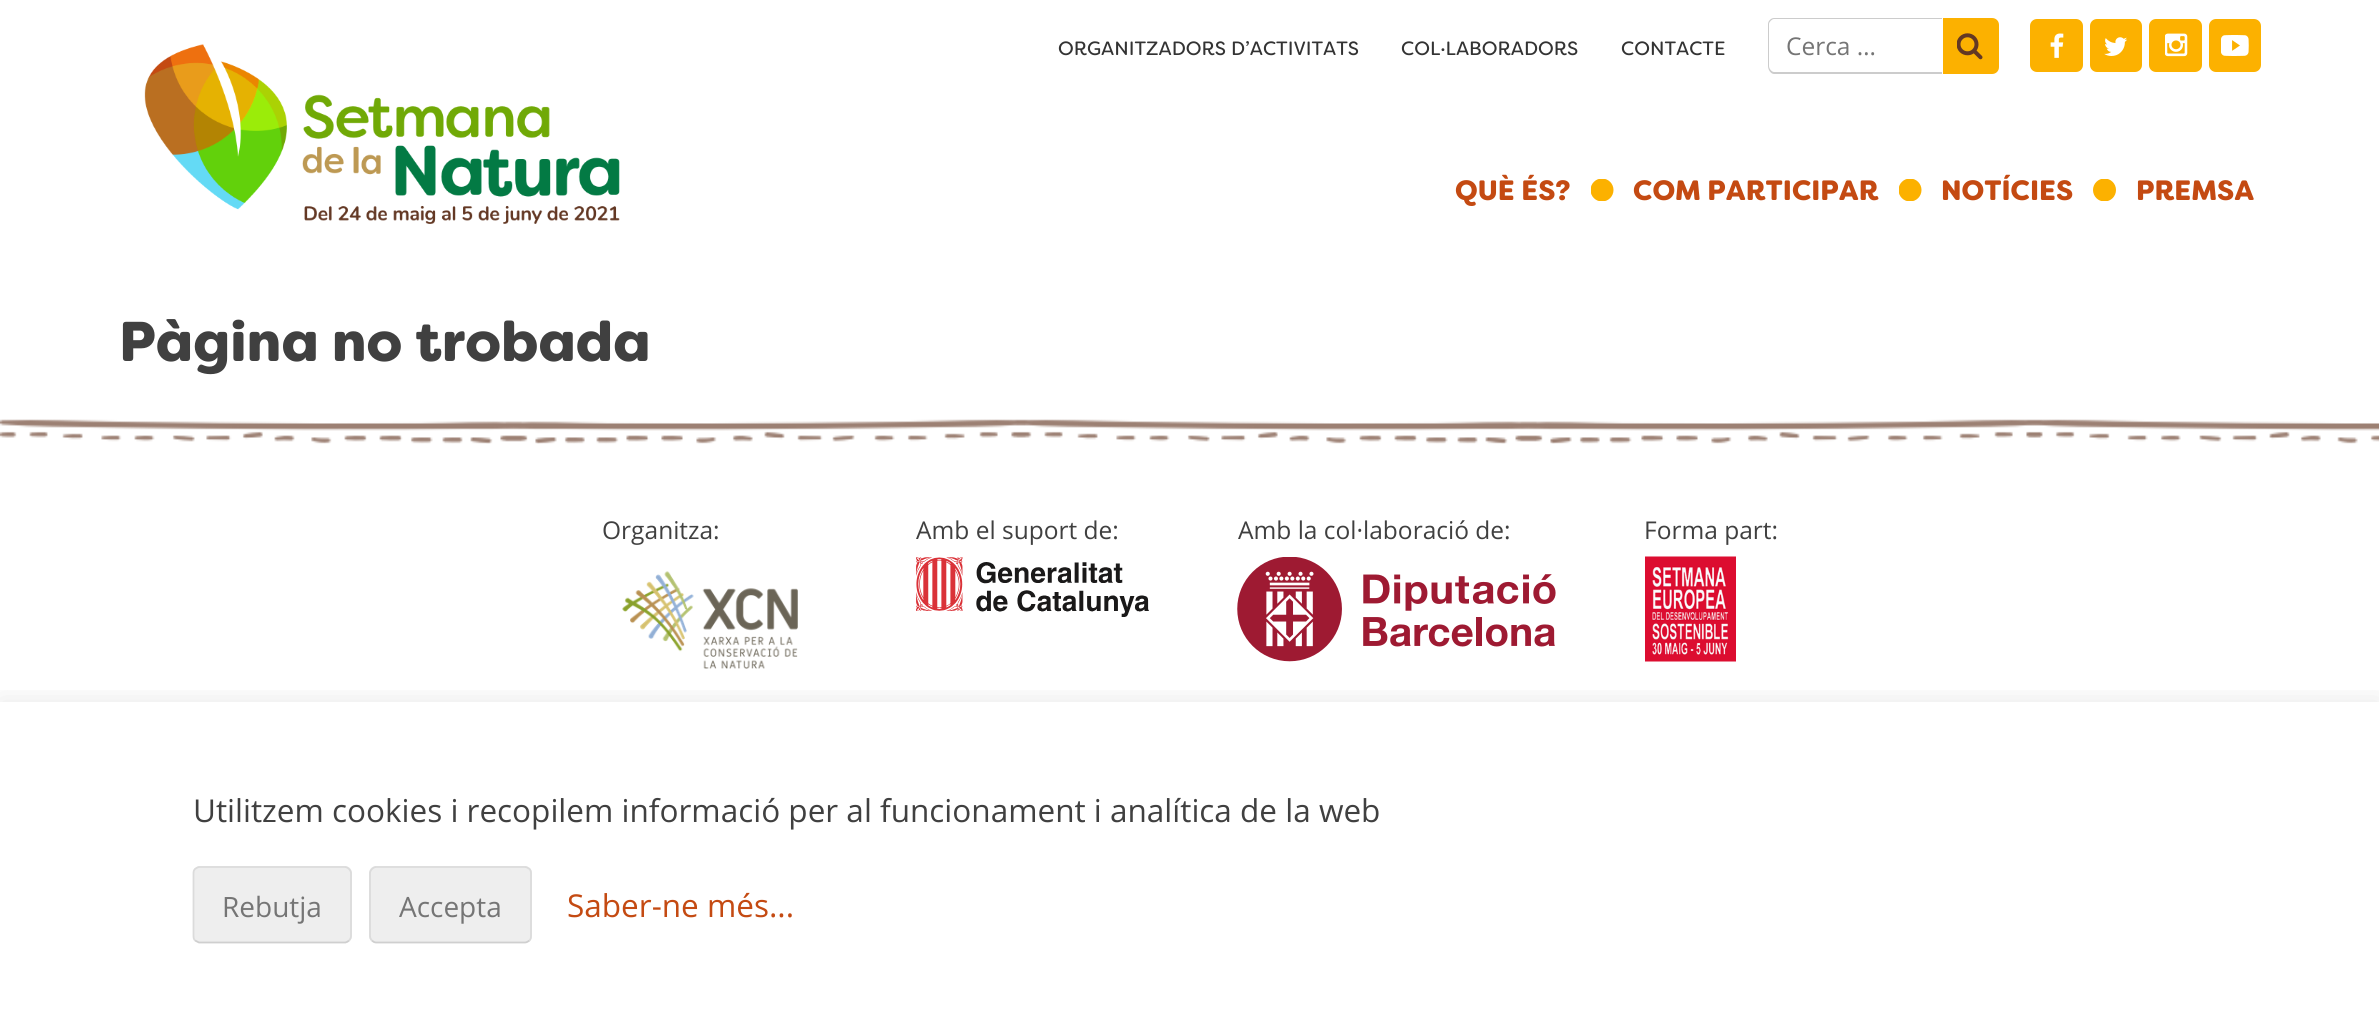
#include <cairo.h>
#include <math.h>
#include <stddef.h>

static cairo_t *c;
static void C(unsigned color){cairo_set_source_rgb(c, (color >> 16) / 255.0, (color >> 8 & 255) / 255.0, (color & 255) / 255.0);}
static void F(const char *family, double size, int italic, int bold){cairo_select_font_face(c, family, italic ? CAIRO_FONT_SLANT_ITALIC : CAIRO_FONT_SLANT_NORMAL,bold ? CAIRO_FONT_WEIGHT_BOLD : CAIRO_FONT_WEIGHT_NORMAL);cairo_set_font_size(c, size);}
static void T(double x, double y, const char *s){cairo_move_to(c, x, y);cairo_show_text(c, s);}
static void Q(double x, double y, double w, double h, double r){cairo_new_sub_path(c);cairo_arc(c, x + w - r, y + h - r, r, 0, M_PI / 2);cairo_arc(c, x + r, y + h - r, r, M_PI / 2, M_PI);cairo_arc(c, x + r, y + r, r, M_PI, 1.5 * M_PI);cairo_arc(c, x + w - r, y + r, r, 1.5 * M_PI, 2 * M_PI);cairo_close_path(c);}
static void S(double x, double y, double w, double h, double r, double blur, double alpha){cairo_push_group_with_content(c, CAIRO_CONTENT_ALPHA);cairo_set_operator(c, CAIRO_OPERATOR_SOURCE);for (int i = 15; i >= -15 && fmin(w, h) + blur * i / 3 > 0; i -= 2) {double e = blur * i / 6;cairo_set_source_rgba(c, 0, 0, 0, alpha * erfc((i - 1) / 8.5) / 2);Q(x - e, y - e, w + 2 * e, h + 2 * e, fmax(0, fmin(r + e + blur * .6, fmin(w, h) / 2 + e)));cairo_fill(c);}cairo_pattern_t *soft = cairo_pop_group(c);cairo_mask(c, soft);cairo_pattern_destroy(soft);}
static void I(const char *path, double x, double y, double w, double h){cairo_surface_t *image = cairo_image_surface_create_from_png(path);cairo_save(c);cairo_set_source_surface(c, image, x, y);cairo_rectangle(c, x, y, w, h);cairo_fill(c);cairo_restore(c);cairo_surface_destroy(image);}
int main(void) {
cairo_surface_t *surface = cairo_image_surface_create(CAIRO_FORMAT_RGB24, 2379, 1027);
c = cairo_create(surface);
cairo_font_options_t *options = cairo_font_options_create();
cairo_font_options_set_hint_metrics(options, CAIRO_HINT_METRICS_OFF);
cairo_font_options_set_hint_style(options, CAIRO_HINT_STYLE_NONE);
cairo_set_font_options(c, options);
cairo_set_miter_limit(c, 4);
C(0xffffff);
cairo_paint(c);
I("1.png",144,44,476,180);
F("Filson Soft",19.25,0,0);
C(0x333333);
T(1058,55,"ORGANITZADORS D’ACTIVITATS");
T(1401,55,"COL·LABORADORS");
T(1621,55,"CONTACTE");
C(0xcccccc);
cairo_set_fill_rule(c,CAIRO_FILL_RULE_EVEN_ODD);
cairo_new_path(c);
cairo_move_to(c,1774,18);
cairo_line_to(c,1942,18);
cairo_line_to(c,1942,74);
cairo_line_to(c,1774,74);
cairo_curve_to(c,1771,74,1768,70,1768,66);
cairo_line_to(c,1768,24);
cairo_curve_to(c,1768,21,1771,18,1774,18);
cairo_close_path(c);
cairo_move_to(c,1774,19);
cairo_line_to(c,1942,19);
cairo_line_to(c,1942,72);
cairo_line_to(c,1774,72);
cairo_curve_to(c,1772,72,1769,69,1769,66);
cairo_line_to(c,1769,24);
cairo_curve_to(c,1769,22,1772,19,1774,19);
cairo_close_path(c);
cairo_fill(c);
F("Open Sans",24.5,0,0);
C(0x757575);
T(1786,55,"Cerca …");
C(0xfcb100);
cairo_new_path(c);
cairo_move_to(c,1943,18);
cairo_line_to(c,1992,18);
cairo_curve_to(c,1996,18,1999,21,1999,25);
cairo_line_to(c,1999,67);
cairo_curve_to(c,1999,71,1996,74,1992,74);
cairo_line_to(c,1943,74);
cairo_close_path(c);
cairo_fill(c);
I("2.png",1957,33,26,27);
Q(2030,19,53,53,7);
cairo_fill(c);
I("3.png",2050,33,14,25);
Q(2090,19,52,53,7);
cairo_fill(c);
I("4.png",2104,37,24,19);
Q(2149,19,53,53,7);
cairo_fill(c);
I("5.png",2165,33,23,24);
Q(2209,19,52,53,7);
cairo_fill(c);
I("6.png",2221,35,28,21);
F("Filson Soft Black",28,0,0);
C(0xc44a12);
T(1455,200,"QUÈ ÉS?");
cairo_save(c);
cairo_set_fill_rule(c,CAIRO_FILL_RULE_WINDING);
cairo_rectangle(c,1591,179,23,22);
cairo_clip(c);
C(0xfcb100);
cairo_arc(c,1602,190,11.5,0,2 * M_PI);
cairo_fill(c);
cairo_restore(c);
T(1633,200,"COM PARTICIPAR");
cairo_save(c);
cairo_set_fill_rule(c,CAIRO_FILL_RULE_WINDING);
cairo_rectangle(c,1899,179,23,22);
cairo_clip(c);
C(0xfcb100);
cairo_arc(c,1910,190,11.5,0,2 * M_PI);
cairo_fill(c);
cairo_restore(c);
T(1941,200,"NOTÍCIES");
cairo_save(c);
cairo_set_fill_rule(c,CAIRO_FILL_RULE_WINDING);
cairo_rectangle(c,2093,179,23,22);
cairo_clip(c);
C(0xfcb100);
cairo_arc(c,2104.5,190,11.5,0,2 * M_PI);
cairo_fill(c);
cairo_restore(c);
T(2136,200,"PREMSA");
F("Filson Soft Black",56,0,0);
C(0x404040);
T(119,361,"Pàgina no trobada");
I("7.png",0,419,2379,25);
F("Open Sans",24.5,0,0);
T(602,539,"Organitza:");
I("8.png",622,571,176,98);
T(916,539,"Amb el suport de:");
I("9.png",916,557,233,60);
T(1238,539,"Amb la col·laboració de:");
I("10.png",1237,557,319,105);
T(1644,539,"Forma part:");
I("11.png",1645,556,91,106);
cairo_save(c);
cairo_set_fill_rule(c,CAIRO_FILL_RULE_WINDING);
cairo_rectangle(c,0,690,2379,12);
cairo_clip(c);
C(0x000000);
S(0,702,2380,325,0,14,.1);
cairo_restore(c);
F("Open Sans",31.5,0,0);
T(193,822,"Utilitzem cookies i recopilem informació per al funcionament i analítica de la web");
C(0xeeeeee);
Q(193,866,159,77,7);
cairo_fill(c);
cairo_new_path(c);
cairo_move_to(c,349,940.5);
cairo_curve_to(c,348,941.5,347,942,345.5,942.5);
cairo_line_to(c,199,942.5);
cairo_line_to(c,195,940.5);
C(0xcfcfcf);
cairo_set_line_width(c,1.8);
cairo_stroke(c);
cairo_new_path(c);
cairo_move_to(c,195,940.5);
cairo_curve_to(c,194,939.5,193.5,938,193.5,936);
cairo_line_to(c,193.5,873);
cairo_curve_to(c,193.5,871.5,194,870,195,869);
cairo_curve_to(c,196.5,868,198,867,199.5,867);
cairo_line_to(c,345,867);
cairo_curve_to(c,346.5,867,348,868,349,869);
cairo_curve_to(c,350,870,351,871.5,351,873);
cairo_line_to(c,351,936);
cairo_curve_to(c,351,938,350,939.5,349,940.5);
C(0xdbdbdb);
cairo_stroke(c);
F("Open Sans",28,0,0);
C(0x757575);
T(222,917,"Rebutja");
C(0xeeeeee);
Q(369,866,163,77,7);
cairo_fill(c);
cairo_new_path(c);
cairo_move_to(c,529.5,940.5);
cairo_curve_to(c,528,941.5,526.5,942.5,525,942.5);
cairo_line_to(c,376,942.5);
cairo_curve_to(c,374.5,942.5,373,941.5,372,940.5);
C(0xcfcfcf);
cairo_stroke(c);
cairo_new_path(c);
cairo_move_to(c,372,940.5);
cairo_curve_to(c,371,939.5,370,938,370,936);
cairo_line_to(c,370,873);
cairo_curve_to(c,370,871.5,371,870,372,869);
cairo_curve_to(c,373,868,374.5,867,376,867);
cairo_line_to(c,525,867);
cairo_curve_to(c,526.5,867,528,868,529.5,869);
cairo_curve_to(c,530.5,870,531,871.5,531,873);
cairo_line_to(c,531,936);
cairo_curve_to(c,531,938,530.5,939.5,529.5,940.5);
C(0xdbdbdb);
cairo_stroke(c);
C(0x757575);
T(399,917,"Accepta");
F("Open Sans",31.5,0,0);
C(0xc44a12);
T(567,917,"Saber-ne més...");
cairo_surface_write_to_png(surface, "o.png");
cairo_font_options_destroy(options);
cairo_destroy(c);
cairo_surface_destroy(surface);
return 0;
}
